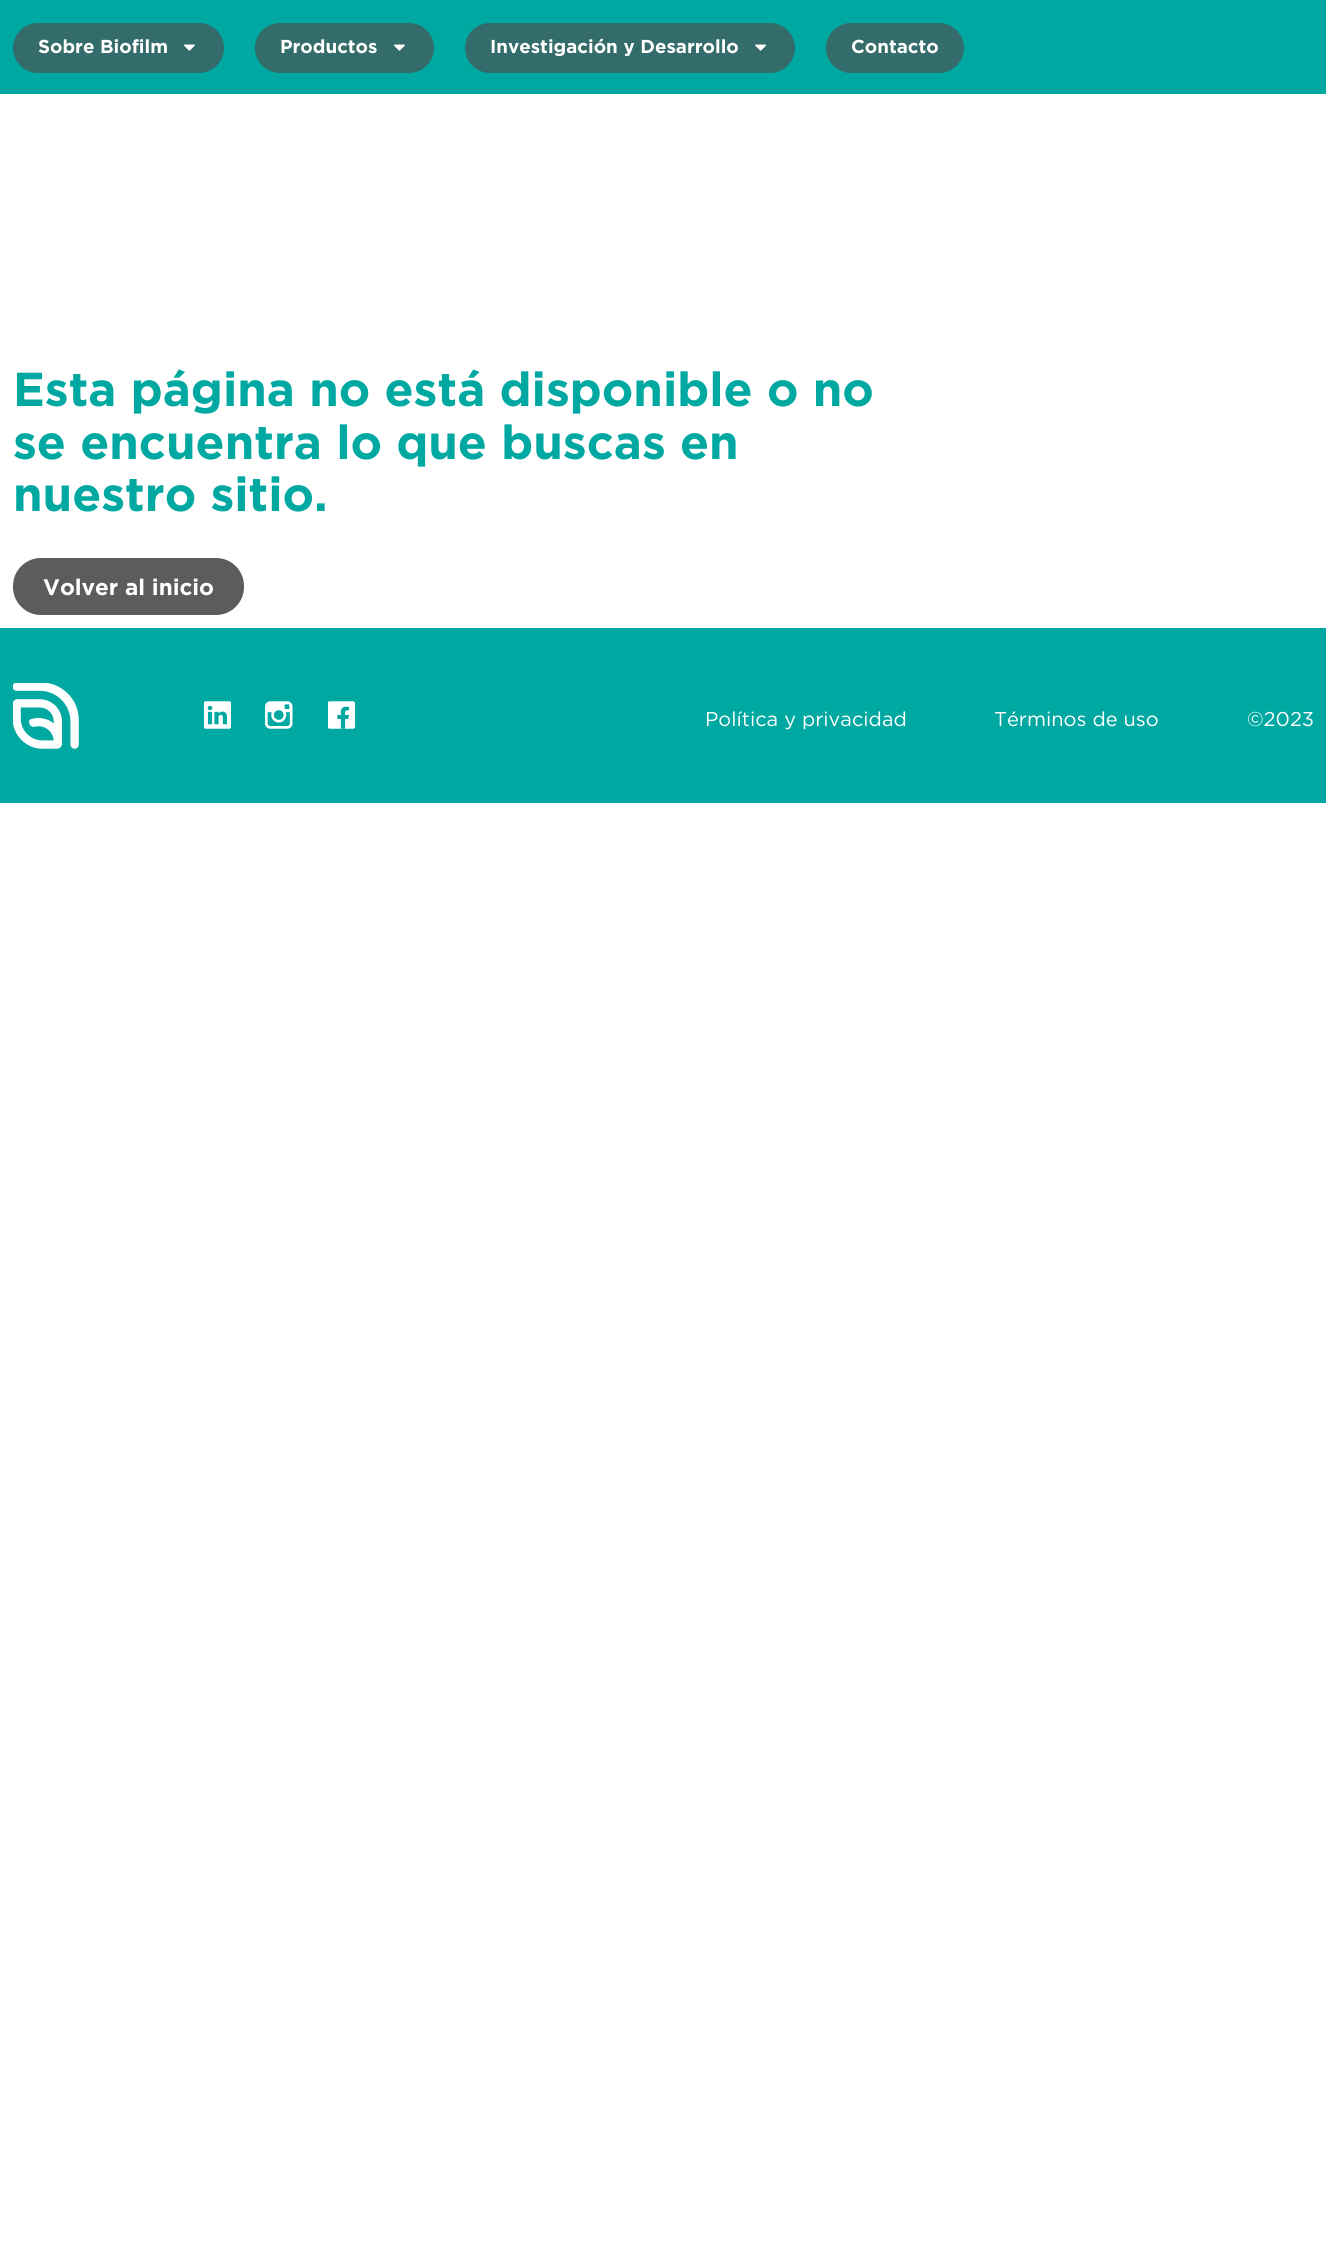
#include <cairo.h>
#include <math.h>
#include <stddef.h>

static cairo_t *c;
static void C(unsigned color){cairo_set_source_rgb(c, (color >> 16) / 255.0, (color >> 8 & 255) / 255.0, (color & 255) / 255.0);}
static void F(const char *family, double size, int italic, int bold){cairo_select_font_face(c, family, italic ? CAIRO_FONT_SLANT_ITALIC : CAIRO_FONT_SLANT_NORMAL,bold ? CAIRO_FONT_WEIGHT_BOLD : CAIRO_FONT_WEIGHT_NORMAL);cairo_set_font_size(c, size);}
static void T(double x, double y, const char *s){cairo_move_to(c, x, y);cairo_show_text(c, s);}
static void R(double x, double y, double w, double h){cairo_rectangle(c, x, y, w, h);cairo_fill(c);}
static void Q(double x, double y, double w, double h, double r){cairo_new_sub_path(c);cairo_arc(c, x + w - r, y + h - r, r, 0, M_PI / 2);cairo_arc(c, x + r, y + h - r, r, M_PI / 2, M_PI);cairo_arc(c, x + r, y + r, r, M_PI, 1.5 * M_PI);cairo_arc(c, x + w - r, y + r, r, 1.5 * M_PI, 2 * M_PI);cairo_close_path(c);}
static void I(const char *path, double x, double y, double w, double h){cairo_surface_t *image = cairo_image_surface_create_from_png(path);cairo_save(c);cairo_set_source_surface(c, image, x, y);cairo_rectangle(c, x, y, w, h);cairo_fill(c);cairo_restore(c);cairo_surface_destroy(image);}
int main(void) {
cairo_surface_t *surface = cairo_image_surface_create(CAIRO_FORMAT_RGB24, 1326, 2263);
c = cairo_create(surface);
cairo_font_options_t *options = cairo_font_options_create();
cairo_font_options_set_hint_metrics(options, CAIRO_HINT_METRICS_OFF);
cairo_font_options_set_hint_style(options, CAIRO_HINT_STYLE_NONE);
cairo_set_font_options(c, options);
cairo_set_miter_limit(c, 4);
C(0xffffff);
cairo_paint(c);
C(0x00a8a2);
R(0,0,1326,94);
C(0x336c6a);
Q(13,23,211,50,25);
cairo_fill(c);
F("Gotham",18.75,0,1);
C(0xffffff);
T(38,53,"Sobre Biofilm");
I("1.png",184,44,11,7);
C(0x336c6a);
Q(255,23,179,50,25);
cairo_fill(c);
C(0xffffff);
T(280,53,"Productos");
I("1.png",394,44,11,7);
C(0x336c6a);
Q(465,23,330,50,25);
cairo_fill(c);
C(0xffffff);
T(490,53,"Investigación y Desarrollo");
I("2.png",755,44,11,7);
C(0x336c6a);
Q(826,23,138,50,25);
cairo_fill(c);
C(0xffffff);
T(851,53,"Contacto");
F("Gotham",47.5,0,1);
C(0x00a8a2);
T(13,406,"Esta página no está disponible o no");
T(13,459,"se encuentra lo que buscas en");
T(13,511,"nuestro sitio.");
C(0x5a5d59);
Q(13,558,231,57,28);
cairo_fill(c);
F("Gotham",22.5,0,1);
C(0xffffff);
T(43,595,"Volver al inicio");
C(0x00a8a2);
R(0,628,1326,175);
I("3.png",13,683,66,66);
I("4.png",204,701,27,28);
I("5.png",265,701,28,28);
I("6.png",328,701,27,28);
F("Gotham",20,0,0);
C(0xffffff);
T(705,726,"Política y privacidad");
T(994,726,"Términos de uso");
T(1247,726,"©2023");
cairo_surface_write_to_png(surface, "o.png");
cairo_font_options_destroy(options);
cairo_destroy(c);
cairo_surface_destroy(surface);
return 0;
}
